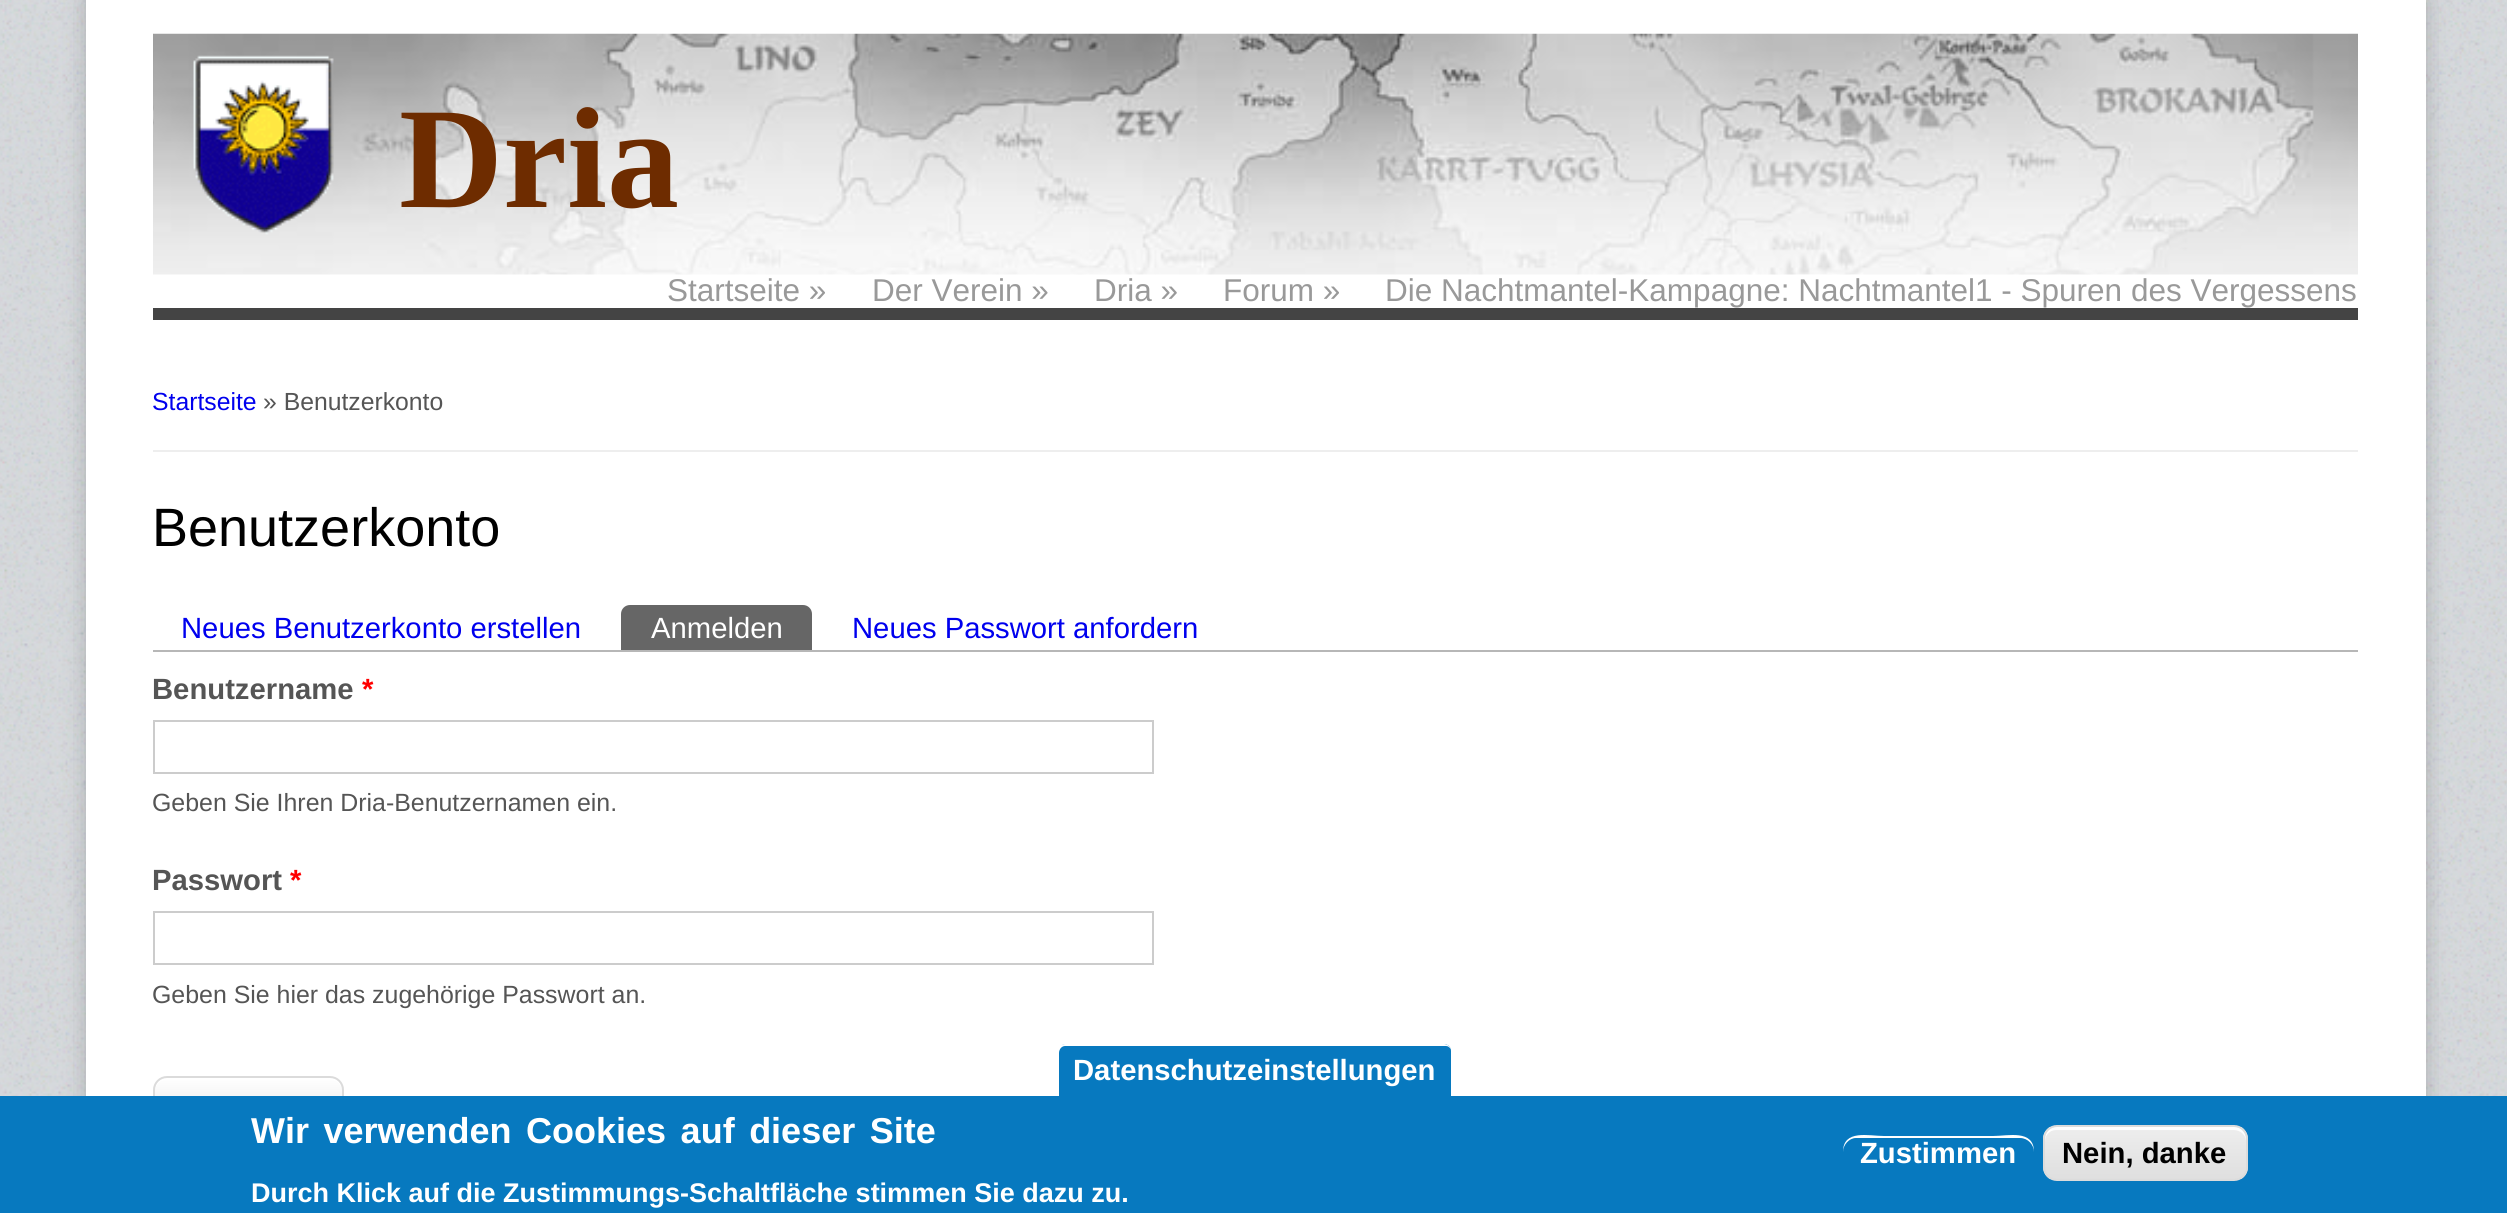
#include <cairo.h>
#include <math.h>
#include <stddef.h>

static cairo_t *c;
static void C(unsigned color){cairo_set_source_rgb(c, (color >> 16) / 255.0, (color >> 8 & 255) / 255.0, (color & 255) / 255.0);}
static void F(const char *family, double size, int italic, int bold){cairo_select_font_face(c, family, italic ? CAIRO_FONT_SLANT_ITALIC : CAIRO_FONT_SLANT_NORMAL,bold ? CAIRO_FONT_WEIGHT_BOLD : CAIRO_FONT_WEIGHT_NORMAL);cairo_set_font_size(c, size);}
static void T(double x, double y, const char *s){cairo_move_to(c, x, y);cairo_show_text(c, s);}
static void L(double x, double y, const char *s, double letter, double word){cairo_move_to(c, x, y);while (*s) {char ch[5] = {0};int n = 0;do ch[n++] = *s++; while ((*s & 0xC0) == 0x80);cairo_show_text(c, ch);cairo_rel_move_to(c, letter + word * (*ch == ' '), 0);}}
static void R(double x, double y, double w, double h){cairo_rectangle(c, x, y, w, h);cairo_fill(c);}
static void Q(double x, double y, double w, double h, double r){cairo_new_sub_path(c);cairo_arc(c, x + w - r, y + h - r, r, 0, M_PI / 2);cairo_arc(c, x + r, y + h - r, r, M_PI / 2, M_PI);cairo_arc(c, x + r, y + r, r, M_PI, 1.5 * M_PI);cairo_arc(c, x + w - r, y + r, r, 1.5 * M_PI, 2 * M_PI);cairo_close_path(c);}
static void S(double x, double y, double w, double h, double r, double blur, double alpha){cairo_push_group_with_content(c, CAIRO_CONTENT_ALPHA);cairo_set_operator(c, CAIRO_OPERATOR_SOURCE);for (int i = 15; i >= -15 && fmin(w, h) + blur * i / 3 > 0; i -= 2) {double e = blur * i / 6;cairo_set_source_rgba(c, 0, 0, 0, alpha * erfc((i - 1) / 8.5) / 2);Q(x - e, y - e, w + 2 * e, h + 2 * e, fmax(0, fmin(r + e + blur * .6, fmin(w, h) / 2 + e)));cairo_fill(c);}cairo_pattern_t *soft = cairo_pop_group(c);cairo_mask(c, soft);cairo_pattern_destroy(soft);}
static void I(const char *path, double x, double y, double w, double h){cairo_surface_t *image = cairo_image_surface_create_from_png(path);cairo_save(c);cairo_set_source_surface(c, image, x, y);cairo_rectangle(c, x, y, w, h);cairo_fill(c);cairo_restore(c);cairo_surface_destroy(image);}
int main(void) {
cairo_surface_t *surface = cairo_image_surface_create(CAIRO_FORMAT_RGB24, 2507, 1213);
c = cairo_create(surface);
cairo_font_options_t *options = cairo_font_options_create();
cairo_font_options_set_hint_metrics(options, CAIRO_HINT_METRICS_OFF);
cairo_font_options_set_hint_style(options, CAIRO_HINT_STYLE_NONE);
cairo_set_font_options(c, options);
cairo_set_miter_limit(c, 4);
cairo_pattern_t *gradient;
C(0xffffff);
cairo_paint(c);
I("1.png",0,0,2507,1096);
C(0x000000);
S(86,0,2340,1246,0,11,.2);
C(0xffffff);
R(86,0,2340,1096);
C(0x444444);
R(153,308,2205,12);
I("2.png",153,33,2205,242);
I("3.png",193,55,141,180);
F("Liberation Serif",144,0,1);
C(0x6e2c00);
T(399,207,"Dria");
F("Liberation Sans",31.5,0,0);
C(0x999999);
T(667,301,"Startseite »");
T(872,301,"Der Verein »");
T(1094,301,"Dria »");
T(1223,301,"Forum »");
T(1385,301,"Die Nachtmantel-Kampagne: Nachtmantel1 - Spuren des Vergessens");
C(0xeeeeee);
R(153,450,2205,2);
F("Liberation Sans",24.75,0,0);
C(0x0000ee);
T(152,410,"Startseite");
C(0x555555);
T(263,410,"» Benutzerkonto");
F("Liberation Sans",54,0,0);
C(0x000000);
T(152,546,"Benutzerkonto");
C(0xb7b7b7);
R(153,650,2205,2);
F("Liberation Sans",29.25,0,0);
C(0x0000ee);
T(181,638,"Neues Benutzerkonto erstellen");
C(0x666666);
cairo_new_path(c);
cairo_move_to(c,630,605);
cairo_line_to(c,803,605);
cairo_curve_to(c,808,605,812,609,812,614);
cairo_line_to(c,812,650);
cairo_line_to(c,621,650);
cairo_line_to(c,621,614);
cairo_curve_to(c,621,609,625,605,630,605);
cairo_close_path(c);
cairo_fill(c);
C(0xffffff);
T(651,638,"Anmelden");
C(0x0000ee);
T(852,638,"Neues Passwort anfordern");
F("Liberation Sans",29.25,0,1);
C(0x555555);
T(152,699,"Benutzername");
C(0xff0000);
T(362,699,"*");
cairo_rectangle(c,154,721,999,52);
C(0xcccccc);
cairo_stroke(c);
F("Liberation Sans",24.9,0,0);
C(0x555555);
T(152,811,"Geben Sie Ihren Dria-Benutzernamen ein.");
F("Liberation Sans",29.25,0,1);
T(152,890,"Passwort");
C(0xff0000);
T(290,890,"*");
cairo_rectangle(c,154,912,999,52);
C(0xcccccc);
cairo_stroke(c);
F("Liberation Sans",24.9,0,0);
C(0x555555);
T(152,1003,"Geben Sie hier das zugehörige Passwort an.");
cairo_save(c);
Q(153,1076,191,58,14);
cairo_clip(c);
gradient = cairo_pattern_create_linear(249,1078,249,1132);
cairo_pattern_add_color_stop_rgba(gradient,0,1,1,1,1);
cairo_pattern_add_color_stop_rgba(gradient,1,0.89,0.89,0.89,1);
cairo_set_source(c,gradient);
cairo_pattern_destroy(gradient);
R(153,1078,191,18);
cairo_restore(c);
C(0xffffff);
cairo_new_path(c);
cairo_move_to(c,166,1080);
cairo_line_to(c,331,1080);
cairo_curve_to(c,337,1080,342,1085,342,1091);
cairo_line_to(c,342,1089);
cairo_curve_to(c,342,1083,337,1078,331,1078);
cairo_line_to(c,166,1078);
cairo_curve_to(c,160,1078,155,1083,155,1089);
cairo_line_to(c,155,1091);
cairo_curve_to(c,155,1085,160,1080,166,1080);
cairo_close_path(c);
cairo_fill(c);
Q(154,1077,189,56,13);
C(0xdbdbdb);
cairo_stroke(c);
C(0x0779bf);
R(0,1096,2507,117);
cairo_new_path(c);
cairo_move_to(c,1065,1044);
cairo_line_to(c,1444,1044);
cairo_curve_to(c,1448,1044,1451,1047,1451,1051);
cairo_line_to(c,1451,1096);
cairo_line_to(c,1058,1096);
cairo_line_to(c,1058,1051);
cairo_curve_to(c,1058,1047,1061,1044,1065,1044);
cairo_close_path(c);
cairo_fill(c);
C(0xffffff);
cairo_new_path(c);
cairo_move_to(c,1065,1046);
cairo_line_to(c,1446,1046);
cairo_curve_to(c,1448,1046,1449,1047,1451,1049);
cairo_curve_to(c,1450,1046,1447,1044,1444,1044);
cairo_line_to(c,1065,1044);
cairo_curve_to(c,1061,1044,1058,1047,1058,1051);
cairo_line_to(c,1058,1096);
cairo_line_to(c,1059,1096);
cairo_line_to(c,1059,1053);
cairo_curve_to(c,1059,1049,1062,1046,1065,1046);
cairo_close_path(c);
cairo_fill(c);
cairo_set_fill_rule(c,CAIRO_FILL_RULE_EVEN_ODD);
cairo_new_path(c);
cairo_move_to(c,1065,1040);
cairo_line_to(c,1446,1040);
cairo_curve_to(c,1452,1040,1457,1045,1457,1051);
cairo_line_to(c,1457,1096);
cairo_line_to(c,1054,1096);
cairo_line_to(c,1054,1051);
cairo_curve_to(c,1054,1045,1059,1040,1065,1040);
cairo_close_path(c);
cairo_move_to(c,1065,1044);
cairo_line_to(c,1446,1044);
cairo_curve_to(c,1449,1044,1452,1047,1452,1051);
cairo_line_to(c,1452,1096);
cairo_line_to(c,1059,1096);
cairo_line_to(c,1059,1051);
cairo_curve_to(c,1059,1047,1062,1044,1065,1044);
cairo_close_path(c);
cairo_fill(c);
F("Liberation Sans",29.25,0,1);
T(1073,1080,"Datenschutzeinstellungen");
F("Liberation Sans",36,0,1);
L(251,1143,"Wir verwenden Cookies auf dieser Site",0,4.5);
F("Liberation Sans",27,0,1);
T(251,1202,"Durch Klick auf die Zustimmungs-Schaltfläche stimmen Sie dazu zu.");
cairo_set_fill_rule(c,CAIRO_FILL_RULE_WINDING);
cairo_new_path(c);
cairo_move_to(c,1856,1138);
cairo_line_to(c,2020,1138);
cairo_curve_to(c,2028,1138,2034,1145,2034,1152);
cairo_curve_to(c,2034,1129,2008,1136,1993,1136);
cairo_line_to(c,1884,1136);
cairo_curve_to(c,1869,1136,1843,1129,1843,1152);
cairo_curve_to(c,1843,1145,1849,1138,1856,1138);
cairo_close_path(c);
cairo_fill(c);
F("Liberation Sans",29.25,0,1);
T(1860,1163,"Zustimmen");
cairo_save(c);
Q(2043,1125,205,56,14);
cairo_clip(c);
gradient = cairo_pattern_create_linear(2145,1127,2145,1179);
cairo_pattern_add_color_stop_rgba(gradient,.05,0.929,0.929,0.929,1);
cairo_pattern_add_color_stop_rgba(gradient,1,0.875,0.875,0.875,1);
cairo_set_source(c,gradient);
cairo_pattern_destroy(gradient);
R(2043,1127,205,52);
cairo_restore(c);
cairo_new_path(c);
cairo_move_to(c,2056,1130);
cairo_line_to(c,2234,1130);
cairo_curve_to(c,2240,1130,2246,1135,2246,1141);
cairo_line_to(c,2246,1138);
cairo_curve_to(c,2246,1132,2241,1127,2235,1127);
cairo_line_to(c,2056,1127);
cairo_curve_to(c,2050,1127,2045,1132,2045,1138);
cairo_line_to(c,2045,1141);
cairo_curve_to(c,2045,1135,2050,1130,2056,1130);
cairo_close_path(c);
cairo_fill(c);
Q(2044,1126,203,54,13);
C(0xdcdcdc);
cairo_stroke(c);
C(0x000000);
T(2062,1163,"Nein, danke");
cairo_surface_write_to_png(surface, "o.png");
cairo_font_options_destroy(options);
cairo_destroy(c);
cairo_surface_destroy(surface);
return 0;
}
